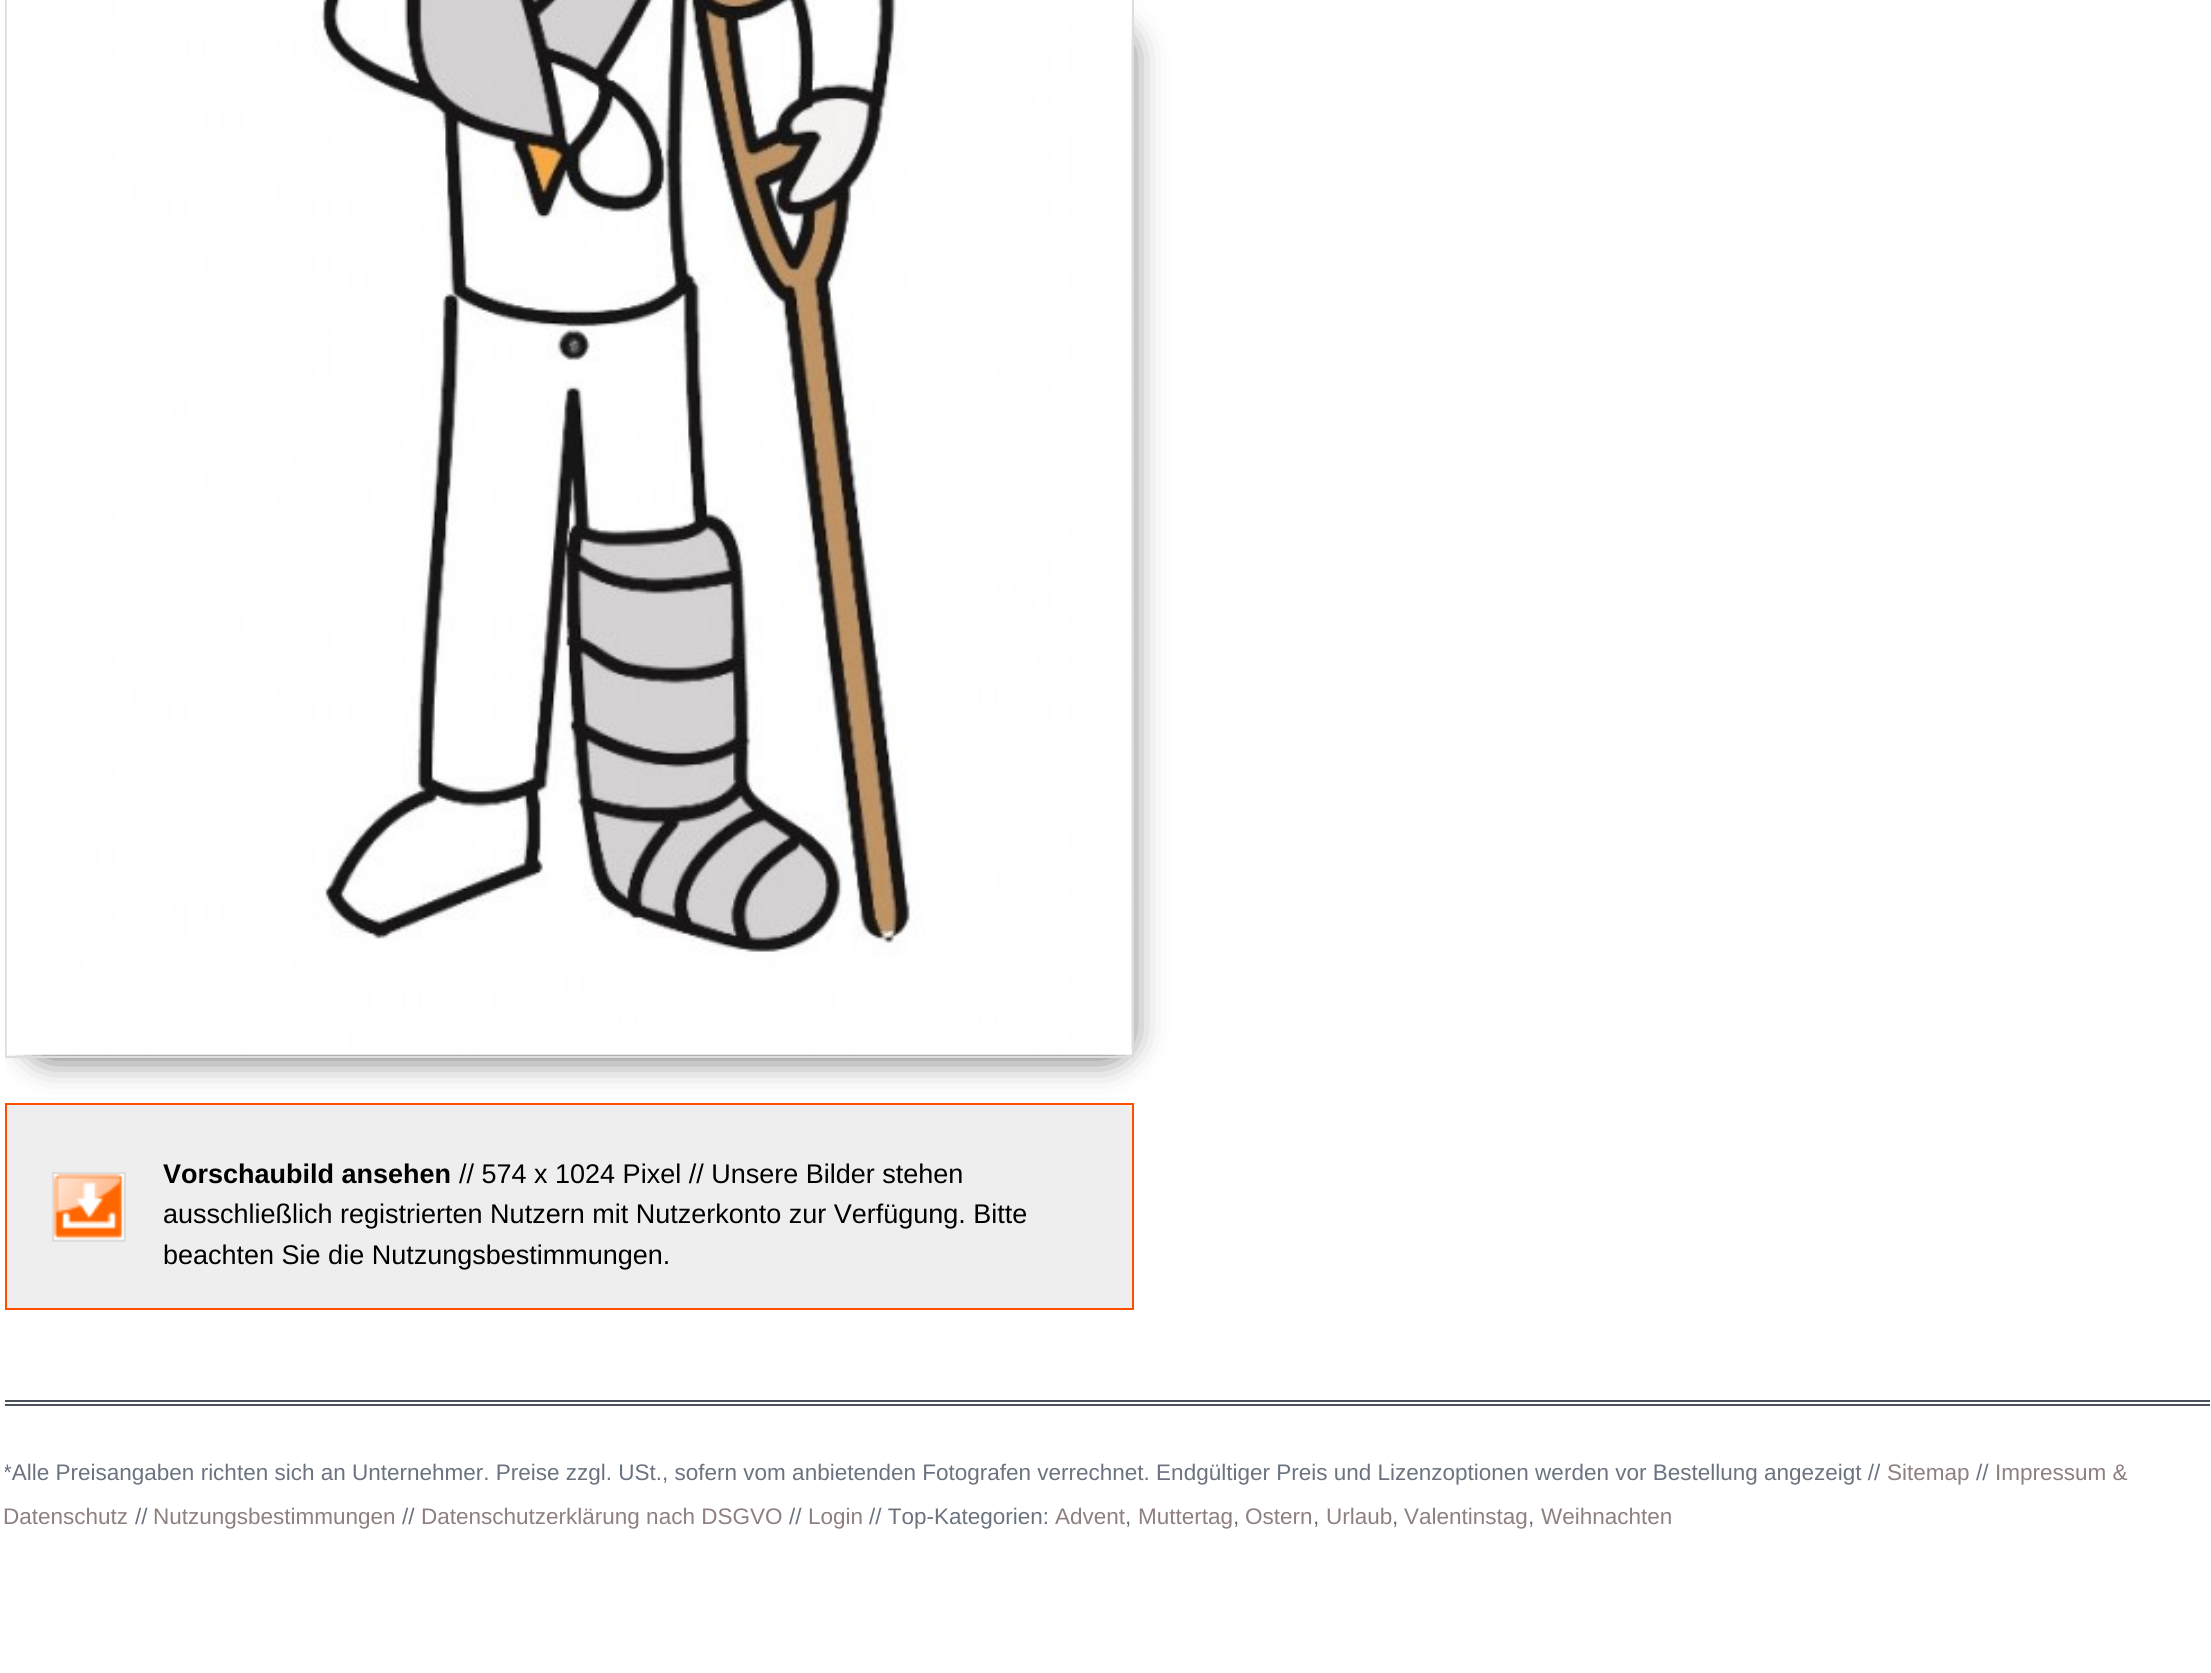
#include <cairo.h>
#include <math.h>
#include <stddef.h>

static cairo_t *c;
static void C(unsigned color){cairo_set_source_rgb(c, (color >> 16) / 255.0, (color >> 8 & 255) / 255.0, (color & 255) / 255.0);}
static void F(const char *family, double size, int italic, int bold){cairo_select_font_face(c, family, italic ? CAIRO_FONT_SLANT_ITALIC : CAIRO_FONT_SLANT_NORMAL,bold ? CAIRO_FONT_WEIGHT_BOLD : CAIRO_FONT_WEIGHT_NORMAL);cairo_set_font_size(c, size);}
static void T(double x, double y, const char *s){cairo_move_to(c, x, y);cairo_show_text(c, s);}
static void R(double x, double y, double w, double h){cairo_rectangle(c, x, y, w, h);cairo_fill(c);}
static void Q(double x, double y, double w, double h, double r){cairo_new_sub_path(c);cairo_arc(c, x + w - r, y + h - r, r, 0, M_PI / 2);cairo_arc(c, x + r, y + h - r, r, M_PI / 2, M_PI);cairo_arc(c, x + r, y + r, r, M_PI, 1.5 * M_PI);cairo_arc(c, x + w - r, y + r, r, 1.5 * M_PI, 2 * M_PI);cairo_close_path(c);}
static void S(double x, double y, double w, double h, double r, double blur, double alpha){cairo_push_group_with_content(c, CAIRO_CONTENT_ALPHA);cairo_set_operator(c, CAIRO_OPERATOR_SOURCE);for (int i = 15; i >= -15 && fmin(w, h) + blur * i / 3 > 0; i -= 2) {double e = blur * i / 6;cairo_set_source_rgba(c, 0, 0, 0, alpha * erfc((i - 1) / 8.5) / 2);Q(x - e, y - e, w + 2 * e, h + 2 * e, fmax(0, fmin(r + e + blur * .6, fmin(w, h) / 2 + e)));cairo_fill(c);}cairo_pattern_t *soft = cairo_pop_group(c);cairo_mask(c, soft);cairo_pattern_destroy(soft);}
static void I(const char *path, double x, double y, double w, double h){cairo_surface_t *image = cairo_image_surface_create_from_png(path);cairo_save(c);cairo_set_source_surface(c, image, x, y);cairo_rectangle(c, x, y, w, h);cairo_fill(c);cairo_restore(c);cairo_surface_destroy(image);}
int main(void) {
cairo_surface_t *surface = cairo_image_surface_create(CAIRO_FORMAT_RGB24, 2211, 1673);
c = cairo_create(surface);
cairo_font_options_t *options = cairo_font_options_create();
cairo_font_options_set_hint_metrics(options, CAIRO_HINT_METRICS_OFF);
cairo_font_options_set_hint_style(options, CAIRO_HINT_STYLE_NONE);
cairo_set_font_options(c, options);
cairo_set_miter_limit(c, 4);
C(0xffffff);
cairo_paint(c);
cairo_save(c);
cairo_rectangle(c,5,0,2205,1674);
cairo_clip(c);
C(0x000000);
S(27,29,1103,1029,23,17,.6);
cairo_restore(c);
cairo_rectangle(c,6,-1,1127,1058);
C(0xdddddd);
cairo_stroke(c);
I("1.png",6,0,1126,1055);
C(0xeeeeee);
cairo_rectangle(c,6,1104,1127,205);
cairo_fill_preserve(c);
C(0xff4e00);
cairo_stroke(c);
cairo_rectangle(c,53,1173,72,68);
C(0xdddddd);
cairo_stroke(c);
I("2.png",54,1174,70,66);
F("Liberation Sans",27,0,1);
C(0x000000);
T(163,1183,"Vorschaubild ansehen");
F("Liberation Sans",27,0,0);
T(459,1183,"// 574 x 1024 Pixel // Unsere Bilder stehen");
T(163,1223,"ausschließlich registrierten Nutzern mit Nutzerkonto zur Verfügung. Bitte");
T(163,1264,"beachten Sie die Nutzungsbestimmungen.");
C(0x4b515a);
R(5,1400,2205,2);
R(5,1404,2205,2);
cairo_save(c);
cairo_rectangle(c,5,0,2205,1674);
cairo_clip(c);
F("Liberation Sans",22.5,0,0);
C(0x6a737f);
T(3,1480,"*Alle Preisangaben richten sich an Unternehmer. Preise zzgl. USt., sofern vom anbietenden Fotografen verrechnet. Endgültiger Preis und Lizenzoptionen werden vor Bestellung angezeigt //");
cairo_restore(c);
F("Liberation Sans",22.5,0,0);
C(0x8f8080);
T(1887,1480,"Sitemap");
C(0x6a737f);
T(1976,1480,"//");
C(0x8f8080);
T(1995,1480,"Impressum &");
T(3,1524,"Datenschutz");
C(0x6a737f);
T(135,1524,"//");
C(0x8f8080);
T(153,1524,"Nutzungsbestimmungen");
C(0x6a737f);
T(402,1524,"//");
C(0x8f8080);
T(421,1524,"Datenschutzerklärung nach DSGVO");
C(0x6a737f);
T(789,1524,"//");
C(0x8f8080);
T(808,1524,"Login");
C(0x6a737f);
T(869,1524,"// Top-Kategorien:");
C(0x8f8080);
T(1055,1524,"Advent");
C(0x6a737f);
T(1125,1524,",");
C(0x8f8080);
T(1138,1524,"Muttertag");
C(0x6a737f);
T(1233,1524,",");
C(0x8f8080);
T(1245,1524,"Ostern");
C(0x6a737f);
T(1313,1524,",");
C(0x8f8080);
T(1326,1524,"Urlaub");
C(0x6a737f);
T(1392,1524,",");
C(0x8f8080);
T(1404,1524,"Valentinstag");
C(0x6a737f);
T(1528,1524,",");
C(0x8f8080);
T(1541,1524,"Weihnachten");
cairo_surface_write_to_png(surface, "o.png");
cairo_font_options_destroy(options);
cairo_destroy(c);
cairo_surface_destroy(surface);
return 0;
}
